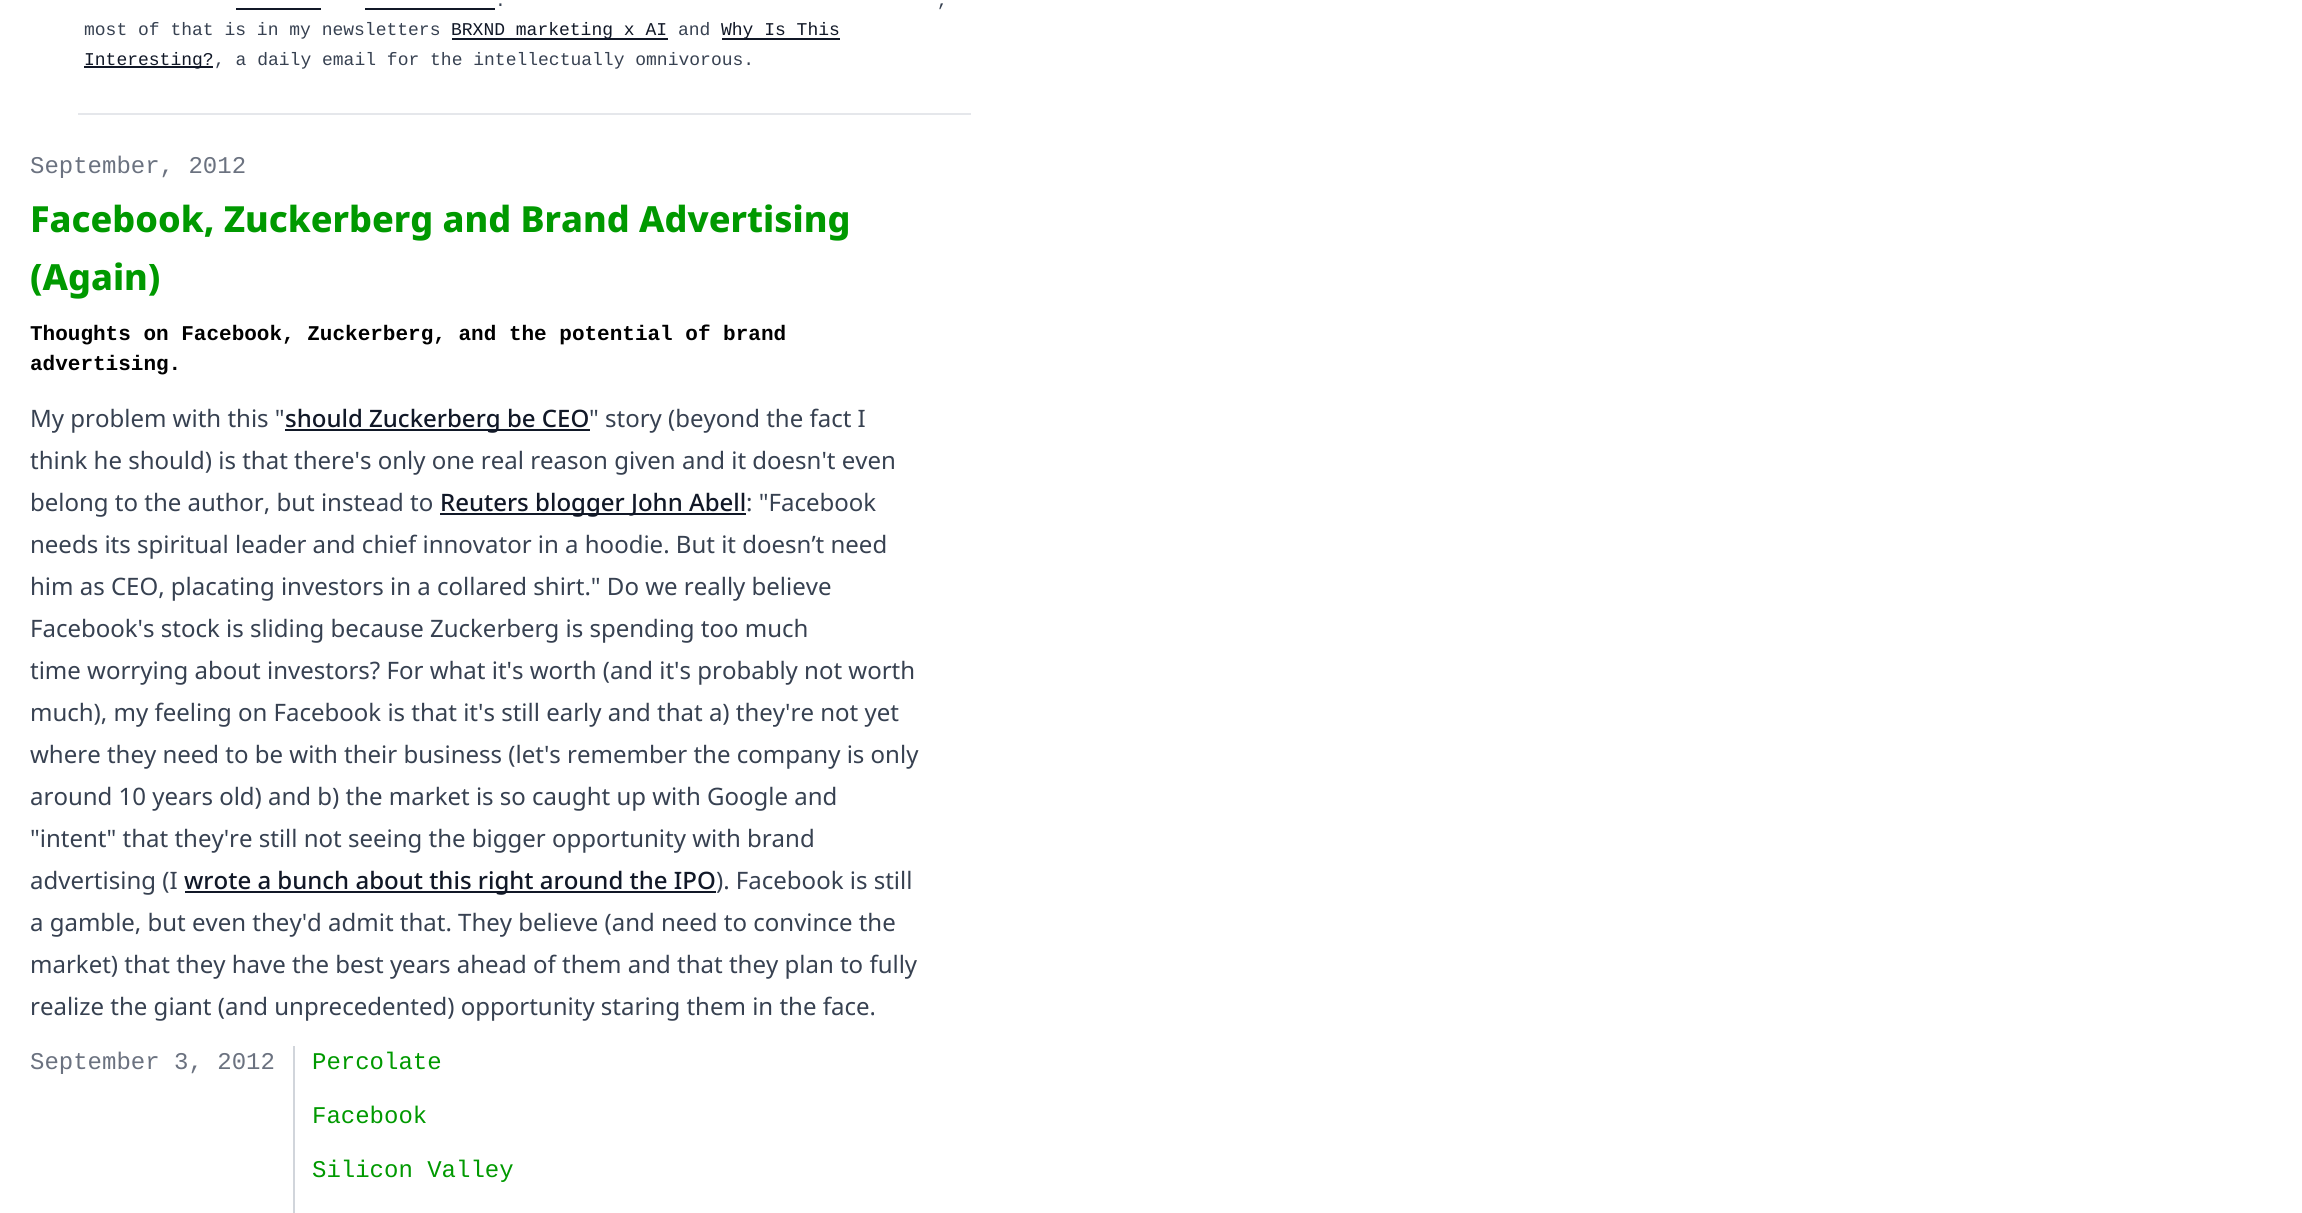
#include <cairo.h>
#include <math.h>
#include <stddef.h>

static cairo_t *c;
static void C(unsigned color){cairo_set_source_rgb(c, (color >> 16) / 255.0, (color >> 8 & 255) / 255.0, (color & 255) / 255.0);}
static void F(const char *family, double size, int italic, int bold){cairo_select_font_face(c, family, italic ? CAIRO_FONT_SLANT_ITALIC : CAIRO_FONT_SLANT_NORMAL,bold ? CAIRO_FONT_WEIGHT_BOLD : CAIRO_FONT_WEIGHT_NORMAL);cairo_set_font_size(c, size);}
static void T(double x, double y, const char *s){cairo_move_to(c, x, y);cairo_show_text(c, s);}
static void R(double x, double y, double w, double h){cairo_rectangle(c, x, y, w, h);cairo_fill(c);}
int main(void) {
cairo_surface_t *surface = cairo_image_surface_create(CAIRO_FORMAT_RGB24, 2302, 1213);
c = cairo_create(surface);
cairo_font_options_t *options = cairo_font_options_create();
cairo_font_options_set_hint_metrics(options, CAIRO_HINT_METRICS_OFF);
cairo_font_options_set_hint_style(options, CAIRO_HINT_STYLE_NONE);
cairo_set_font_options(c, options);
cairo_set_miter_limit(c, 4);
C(0xffffff);
cairo_paint(c);
C(0xe5e7eb);
R(78,113,893,2);
C(0x111827);
R(236,8,85,2);
R(365,8,130,2);
F("Liberation Mono",18,0,0);
C(0x374151);
T(495,6,".");
T(937,6,",");
T(84,35,"most of that is in my newsletters");
C(0x111827);
R(452,38,216,2);
T(451,35,"BRXND marketing x AI");
C(0x374151);
T(678,35,"and");
C(0x111827);
R(722,38,118,2);
T(721,35,"Why Is This");
R(84,66,129,2);
T(84,65,"Interesting?");
C(0x374151);
T(214,65,", a daily email for the intellectually omnivorous.");
F("Liberation Mono",24,0,0);
C(0x6b7280);
T(30,173,"September, 2012");
F("Noto Sans ExtraBold",36,0,0);
C(0x009900);
T(30,232,"Facebook, Zuckerberg and Brand Advertising");
T(30,290,"(Again)");
F("Liberation Mono",21,0,1);
C(0x000000);
T(30,340,"Thoughts on Facebook, Zuckerberg, and the potential of brand");
T(30,370,"advertising.");
F("Noto Sans",24,0,0);
C(0x374151);
T(30,427,"My problem with this \"");
C(0x111827);
R(285,429,305,2);
F("Noto Sans Medium",24,0,0);
T(285,427,"should Zuckerberg be CEO");
F("Noto Sans",24,0,0);
C(0x374151);
T(589,427,"\" story (beyond the fact I");
T(30,469,"think he should) is that there's only one real reason given and it doesn't even");
T(30,511,"belong to the author, but instead to");
C(0x111827);
R(440,513,306,2);
F("Noto Sans Medium",24,0,0);
T(440,511,"Reuters blogger John Abell");
F("Noto Sans",24,0,0);
C(0x374151);
T(746,511,": \"Facebook");
T(30,553,"needs its spiritual leader and chief innovator in a hoodie. But it doesn’t need");
T(30,595,"him as CEO, placating investors in a collared shirt.\" Do we really believe");
T(30,637,"Facebook's stock is sliding because Zuckerberg is spending too much");
T(30,679,"time worrying about investors? For what it's worth (and it's probably not worth");
T(30,721,"much), my feeling on Facebook is that it's still early and that a) they're not yet");
T(30,763,"where they need to be with their business (let's remember the company is only");
T(30,805,"around 10 years old) and b) the market is so caught up with Google and");
T(30,847,"\"intent\" that they're still not seeing the bigger opportunity with brand");
T(30,889,"advertising (I");
C(0x111827);
R(185,891,531,2);
F("Noto Sans Medium",24,0,0);
T(184,889,"wrote a bunch about this right around the IPO");
F("Noto Sans",24,0,0);
C(0x374151);
T(716,889,"). Facebook is still");
T(30,931,"a gamble, but even they'd admit that. They believe (and need to convince the");
T(30,973,"market) that they have the best years ahead of them and that they plan to fully");
T(30,1015,"realize the giant (and unprecedented) opportunity staring them in the face.");
F("Liberation Mono",24,0,0);
C(0x6b7280);
T(30,1069,"September 3, 2012");
C(0xd1d5db);
R(293,1046,2,167);
C(0x009900);
T(312,1069,"Percolate");
T(312,1123,"Facebook");
T(312,1177,"Silicon Valley");
cairo_surface_write_to_png(surface, "o.png");
cairo_font_options_destroy(options);
cairo_destroy(c);
cairo_surface_destroy(surface);
return 0;
}
